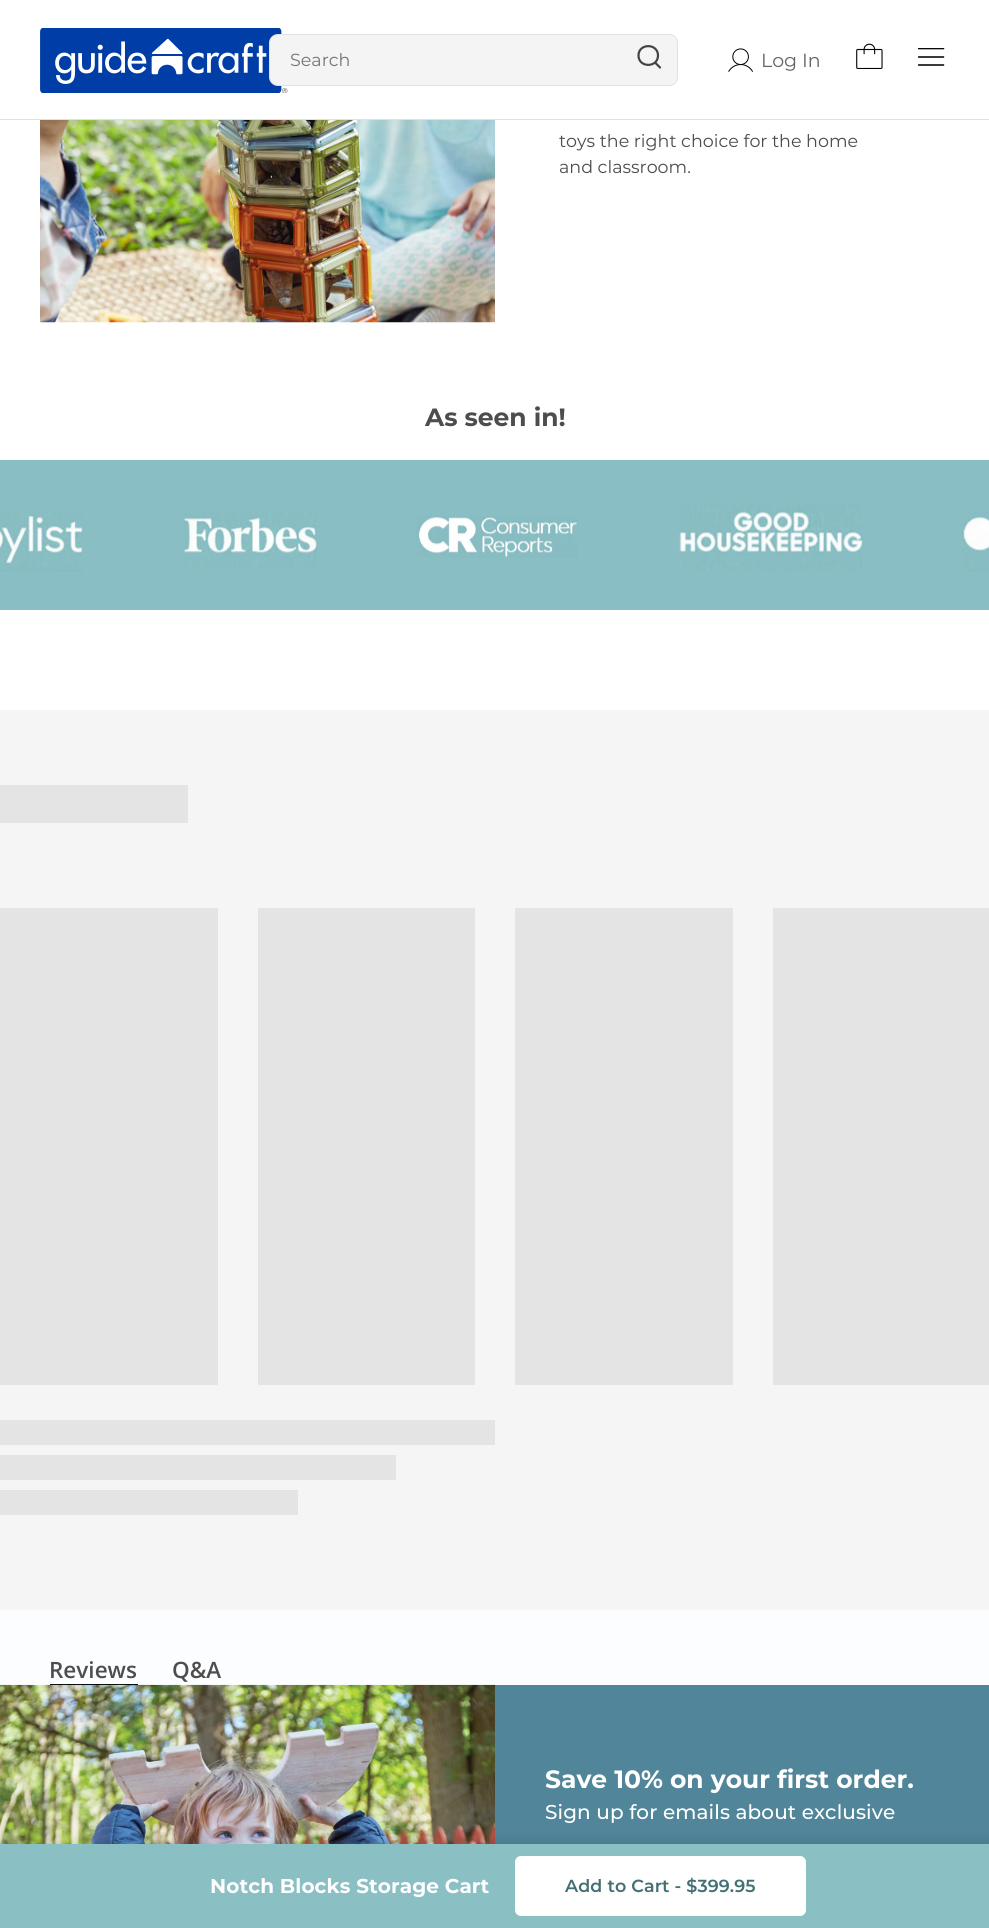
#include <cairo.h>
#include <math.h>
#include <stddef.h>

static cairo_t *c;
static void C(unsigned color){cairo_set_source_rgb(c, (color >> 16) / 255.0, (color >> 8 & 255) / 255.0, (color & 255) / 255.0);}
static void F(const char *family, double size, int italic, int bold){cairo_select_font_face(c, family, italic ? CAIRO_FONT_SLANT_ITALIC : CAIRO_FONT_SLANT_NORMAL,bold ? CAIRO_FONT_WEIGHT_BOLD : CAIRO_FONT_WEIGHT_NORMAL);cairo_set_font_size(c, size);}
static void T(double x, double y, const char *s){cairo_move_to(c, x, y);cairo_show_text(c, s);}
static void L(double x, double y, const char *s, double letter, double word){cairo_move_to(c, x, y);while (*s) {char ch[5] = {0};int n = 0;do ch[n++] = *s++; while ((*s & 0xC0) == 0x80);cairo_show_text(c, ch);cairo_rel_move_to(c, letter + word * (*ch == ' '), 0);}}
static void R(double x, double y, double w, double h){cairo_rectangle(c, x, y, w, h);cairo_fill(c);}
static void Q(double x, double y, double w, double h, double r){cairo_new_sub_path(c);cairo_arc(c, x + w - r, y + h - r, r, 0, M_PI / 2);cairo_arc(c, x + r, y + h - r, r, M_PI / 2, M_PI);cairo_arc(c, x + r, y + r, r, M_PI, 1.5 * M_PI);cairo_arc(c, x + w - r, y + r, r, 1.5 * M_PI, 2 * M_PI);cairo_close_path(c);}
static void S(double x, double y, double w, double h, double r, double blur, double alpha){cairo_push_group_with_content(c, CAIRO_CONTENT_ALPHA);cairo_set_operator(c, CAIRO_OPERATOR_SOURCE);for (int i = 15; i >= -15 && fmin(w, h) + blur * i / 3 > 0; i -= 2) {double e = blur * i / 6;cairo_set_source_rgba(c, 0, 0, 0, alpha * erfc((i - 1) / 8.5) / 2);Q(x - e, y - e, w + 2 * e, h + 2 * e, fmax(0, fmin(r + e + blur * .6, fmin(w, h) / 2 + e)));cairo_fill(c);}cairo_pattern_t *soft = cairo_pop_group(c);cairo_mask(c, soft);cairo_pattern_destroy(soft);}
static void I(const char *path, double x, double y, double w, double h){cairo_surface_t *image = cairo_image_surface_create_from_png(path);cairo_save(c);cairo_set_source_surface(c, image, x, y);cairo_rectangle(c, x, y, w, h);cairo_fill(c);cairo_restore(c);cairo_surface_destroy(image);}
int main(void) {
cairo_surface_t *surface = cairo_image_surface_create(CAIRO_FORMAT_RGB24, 989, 1928);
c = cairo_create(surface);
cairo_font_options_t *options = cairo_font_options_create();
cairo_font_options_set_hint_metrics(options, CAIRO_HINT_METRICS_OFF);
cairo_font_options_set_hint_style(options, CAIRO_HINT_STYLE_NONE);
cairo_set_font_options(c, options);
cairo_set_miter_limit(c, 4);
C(0xffffff);
cairo_paint(c);
I("1.png",40,28,248,65);
C(0xf4f4f4);
Q(269.5,34.5,408,51,8.5);
cairo_fill_preserve(c);
C(0xe1e1e1);
cairo_set_line_width(c,1);
cairo_stroke(c);
F("Montserrat",17.5,0,0);
C(0x757575);
T(290,66,"Search");
cairo_new_path(c);
cairo_move_to(c,660,67.5);
cairo_line_to(c,655,62.5);
cairo_move_to(c,658,55.5);
cairo_curve_to(c,658,68,638.5,68,638.5,55.5);
cairo_curve_to(c,638.5,43,658,43,658,55.5);
cairo_close_path(c);
C(0x434343);
cairo_set_line_width(c,2.2);
cairo_set_line_cap(c,CAIRO_LINE_CAP_ROUND);
cairo_set_line_join(c,CAIRO_LINE_JOIN_ROUND);
cairo_stroke(c);
I("2.png",728,48,25,24);
F("Montserrat",19,0,0);
C(0x636466);
T(761,67,"Log In");
I("3.png",856,43,27,26);
cairo_save(c);
cairo_rectangle(c,918,48,27,18);
cairo_clip(c);
cairo_new_path(c);
cairo_move_to(c,918.5,57);
cairo_line_to(c,943.5,57);
cairo_move_to(c,918.5,48.5);
cairo_line_to(c,943.5,48.5);
cairo_move_to(c,918.5,65);
cairo_line_to(c,943.5,65);
C(0x090a0a);
cairo_set_line_width(c,1.6);
cairo_stroke(c);
cairo_restore(c);
C(0xe1e1e1);
R(0,119,989,1);
I("4.png",40,120,455,203);
F("Montserrat",17.5,0,0);
C(0x4d4d4d);
T(559,147,"toys the right choice for the home");
T(559,173,"and classroom.");
F("Montserrat",25,0,1);
T(425,426,"As seen in!");
C(0x89bec4);
R(0,460,989,150);
I("5.png",0,512,84,60);
I("6.png",183,512,134,56);
I("7.png",417,516,161,42);
I("8.png",679,503,184,68);
I("9.png",962,512,27,60);
C(0xf5f5f5);
R(0,710,989,900);
C(0xe4e4e4);
R(0,785,188,38);
R(0,908,218,477);
R(258,908,217,477);
R(515,908,218,477);
R(773,908,216,477);
R(0,1420,495,25);
R(0,1455,396,25);
R(0,1490,298,25);
C(0xfcfdff);
R(0,1610,989,75);
C(0x000000);
R(50,1684,88,1);
F("Open Sans SemiBold",22.5,0,0);
C(0x4d4d4d);
T(49,1678,"Reviews");
T(172,1678,"Q&A");
C(0x518599);
R(495,1685,494,159);
I("10.png",0,1684,495,160);
F("Montserrat",25,0,1);
C(0xffffff);
T(545,1788,"Save 10% on your first order.");
F("Montserrat Medium",20,0,0);
L(545,1819,"Sign up for emails about exclusive",.1,0);
C(0x000000);
S(0,1841,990,85,0,6,.1);
C(0x8abfc4);
R(0,1844,989,84);
F("Montserrat",20,0,1);
C(0xffffff);
L(210,1893,"Notch Blocks Storage Cart",.1,0);
Q(515,1856,291,60,6);
cairo_fill(c);
F("Montserrat SemiBold",17.5,0,0);
C(0x416f74);
L(565,1892,"Add to Cart - $399.95",.1,0);
cairo_surface_write_to_png(surface, "o.png");
cairo_font_options_destroy(options);
cairo_destroy(c);
cairo_surface_destroy(surface);
return 0;
}
